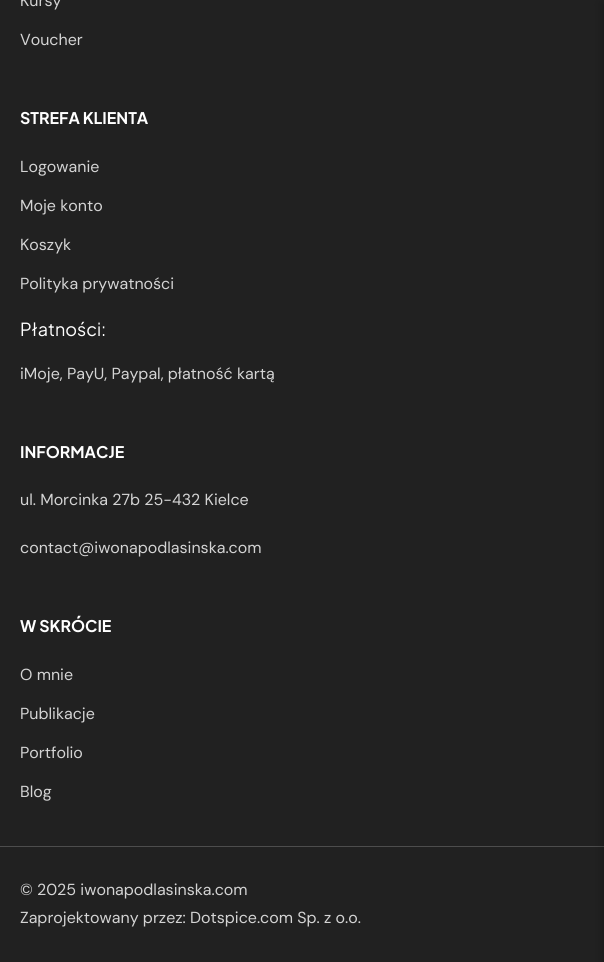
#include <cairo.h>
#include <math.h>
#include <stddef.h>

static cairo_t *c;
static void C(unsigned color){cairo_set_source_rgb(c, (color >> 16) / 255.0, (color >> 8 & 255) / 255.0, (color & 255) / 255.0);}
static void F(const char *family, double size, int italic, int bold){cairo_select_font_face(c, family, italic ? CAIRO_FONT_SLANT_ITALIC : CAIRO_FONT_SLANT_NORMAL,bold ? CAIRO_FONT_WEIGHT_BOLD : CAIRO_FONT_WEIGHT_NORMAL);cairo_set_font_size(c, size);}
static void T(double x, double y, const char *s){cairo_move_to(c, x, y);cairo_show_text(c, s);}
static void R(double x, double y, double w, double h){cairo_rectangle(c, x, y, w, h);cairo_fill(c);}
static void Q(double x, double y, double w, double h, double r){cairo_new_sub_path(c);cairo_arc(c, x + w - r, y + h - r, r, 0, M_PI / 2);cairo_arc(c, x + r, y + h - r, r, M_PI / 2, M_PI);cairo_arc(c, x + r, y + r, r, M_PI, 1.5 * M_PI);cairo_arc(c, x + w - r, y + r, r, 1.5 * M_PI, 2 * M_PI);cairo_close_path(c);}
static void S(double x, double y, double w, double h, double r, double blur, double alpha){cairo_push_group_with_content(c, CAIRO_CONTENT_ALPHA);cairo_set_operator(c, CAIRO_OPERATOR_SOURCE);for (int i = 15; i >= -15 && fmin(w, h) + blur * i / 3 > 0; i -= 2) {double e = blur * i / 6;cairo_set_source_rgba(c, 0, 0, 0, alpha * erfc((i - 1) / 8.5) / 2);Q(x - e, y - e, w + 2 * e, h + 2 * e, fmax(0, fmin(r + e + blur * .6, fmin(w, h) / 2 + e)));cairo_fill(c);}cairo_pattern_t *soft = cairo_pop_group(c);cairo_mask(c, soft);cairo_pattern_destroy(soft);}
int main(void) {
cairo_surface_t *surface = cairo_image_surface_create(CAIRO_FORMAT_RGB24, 604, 962);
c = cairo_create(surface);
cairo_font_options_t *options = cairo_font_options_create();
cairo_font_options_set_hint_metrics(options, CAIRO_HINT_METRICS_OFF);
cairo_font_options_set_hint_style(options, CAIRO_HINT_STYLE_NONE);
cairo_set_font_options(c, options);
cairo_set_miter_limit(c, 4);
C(0x212121);
cairo_paint(c);
F("DM Sans",16,0,0);
C(0xd4d4d4);
T(20,6,"Kursy");
T(20,45,"Voucher");
F("Plus Jakarta Sans",16,0,1);
C(0xffffff);
T(20,124,"STREFA KLIENTA");
F("DM Sans",16,0,0);
C(0xd4d4d4);
T(20,172,"Logowanie");
T(20,211,"Moje konto");
T(20,250,"Koszyk");
T(20,289,"Polityka prywatności");
F("Plus Jakarta Sans",18,0,0);
C(0xffffff);
T(20,336,"Płatności:");
F("DM Sans",16,0,0);
C(0xd4d4d4);
T(20,379,"iMoje, PayU, Paypal, płatność kartą");
F("Plus Jakarta Sans",16,0,1);
C(0xffffff);
T(20,458,"INFORMACJE");
F("DM Sans",16,0,0);
C(0xd4d4d4);
T(20,505,"ul. Morcinka 27b 25-432 Kielce");
T(20,553,"contact@iwonapodlasinska.com");
F("Plus Jakarta Sans",16,0,1);
C(0xffffff);
T(20,632,"W SKRÓCIE");
F("DM Sans",16,0,0);
C(0xd4d4d4);
T(20,680,"O mnie");
T(20,719,"Publikacje");
T(20,758,"Portfolio");
T(20,797,"Blog");
C(0x4d4d4d);
R(0,846,604,1);
C(0xd4d4d4);
T(20,895,"© 2025 iwonapodlasinska.com");
T(20,923,"Zaprojektowany przez: Dotspice.com Sp. z o.o.");
C(0x000000);
S(601,3,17,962,0,4.5,.2);
cairo_surface_write_to_png(surface, "o.png");
cairo_font_options_destroy(options);
cairo_destroy(c);
cairo_surface_destroy(surface);
return 0;
}
